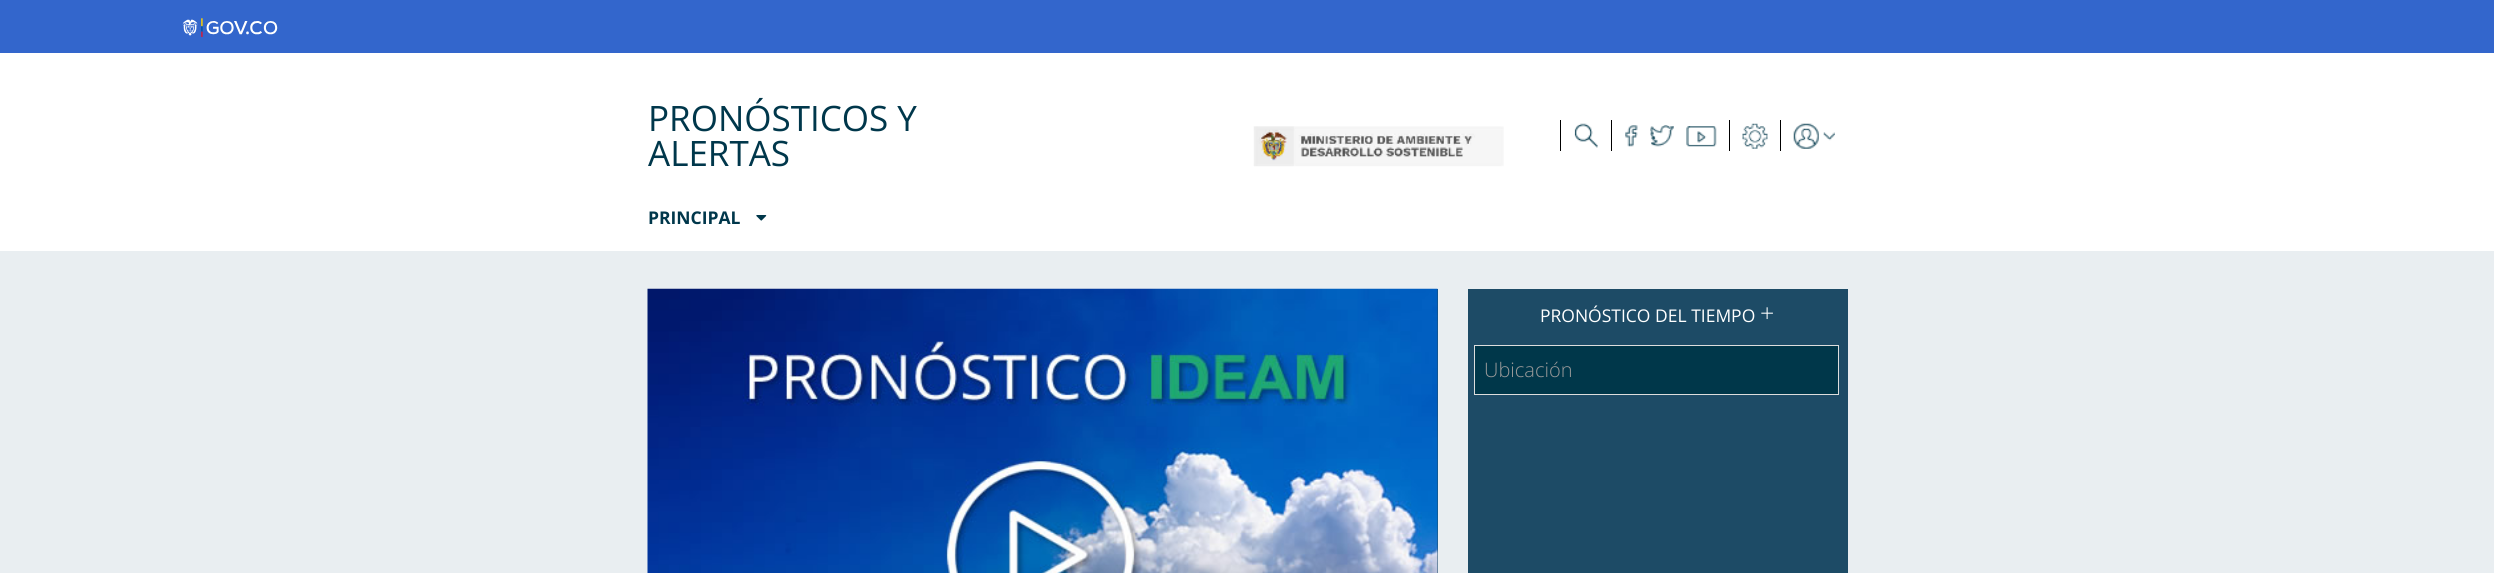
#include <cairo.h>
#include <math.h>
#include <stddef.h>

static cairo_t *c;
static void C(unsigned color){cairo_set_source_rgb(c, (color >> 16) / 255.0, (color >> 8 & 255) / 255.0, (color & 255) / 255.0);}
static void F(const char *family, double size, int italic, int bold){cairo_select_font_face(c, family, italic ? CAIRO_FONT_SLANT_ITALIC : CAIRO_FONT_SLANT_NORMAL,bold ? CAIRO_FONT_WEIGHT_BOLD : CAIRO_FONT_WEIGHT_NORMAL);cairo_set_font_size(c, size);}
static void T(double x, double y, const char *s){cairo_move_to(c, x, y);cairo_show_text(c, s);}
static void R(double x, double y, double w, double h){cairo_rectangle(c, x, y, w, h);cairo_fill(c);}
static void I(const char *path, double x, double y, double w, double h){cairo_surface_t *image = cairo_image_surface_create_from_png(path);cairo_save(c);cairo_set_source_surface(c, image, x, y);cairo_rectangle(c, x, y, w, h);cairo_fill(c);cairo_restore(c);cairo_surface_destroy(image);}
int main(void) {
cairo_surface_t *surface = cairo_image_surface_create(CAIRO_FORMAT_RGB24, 2494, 573);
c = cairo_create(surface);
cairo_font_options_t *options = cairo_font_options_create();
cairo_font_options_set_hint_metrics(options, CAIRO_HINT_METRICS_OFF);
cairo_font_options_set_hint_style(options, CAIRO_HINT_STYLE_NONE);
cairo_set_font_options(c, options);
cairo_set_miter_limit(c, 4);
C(0xe9eef1);
cairo_paint(c);
C(0xffffff);
R(0,53,2494,198);
C(0x3366cc);
R(0,0,2494,53);
I("1.png",182,18,96,19);
F("Open Sans",35,0,0);
C(0x00374b);
T(648,131,"PRONÓSTICOS Y");
T(648,166,"ALERTAS");
I("2.png",1253,126,251,41);
C(0x000000);
R(1560,120,1,31);
I("3.png",1574,123,24,25);
R(1611,120,1,31);
I("4.png",1625,125,13,22);
I("5.png",1650,125,24,22);
I("6.png",1686,126,31,21);
R(1729,120,1,31);
I("7.png",1742,123,26,26);
R(1780,120,1,31);
I("8.png",1793,123,42,26);
F("Open Sans",17.5,0,1);
C(0x00374b);
T(648,224,"PRINCIPAL");
I("9.png",756,215,11,6);
C(0x1d4b66);
R(1437,289,1,284);
I("10.png",647,288,791,285);
R(1468,289,380,284);
F("Open Sans",17.5,0,0);
C(0xffffff);
T(1540,322,"PRONÓSTICO DEL TIEMPO");
F("Open Sans Light",25,0,0);
T(1760,322,"+");
C(0x00374a);
cairo_rectangle(c,1474.5,345.5,364,49);
cairo_fill_preserve(c);
C(0xdddddd);
cairo_set_line_width(c,1);
cairo_stroke(c);
F("Open Sans Light",20,0,0);
C(0x999999);
T(1484,377,"Ubicación");
cairo_surface_write_to_png(surface, "o.png");
cairo_font_options_destroy(options);
cairo_destroy(c);
cairo_surface_destroy(surface);
return 0;
}
